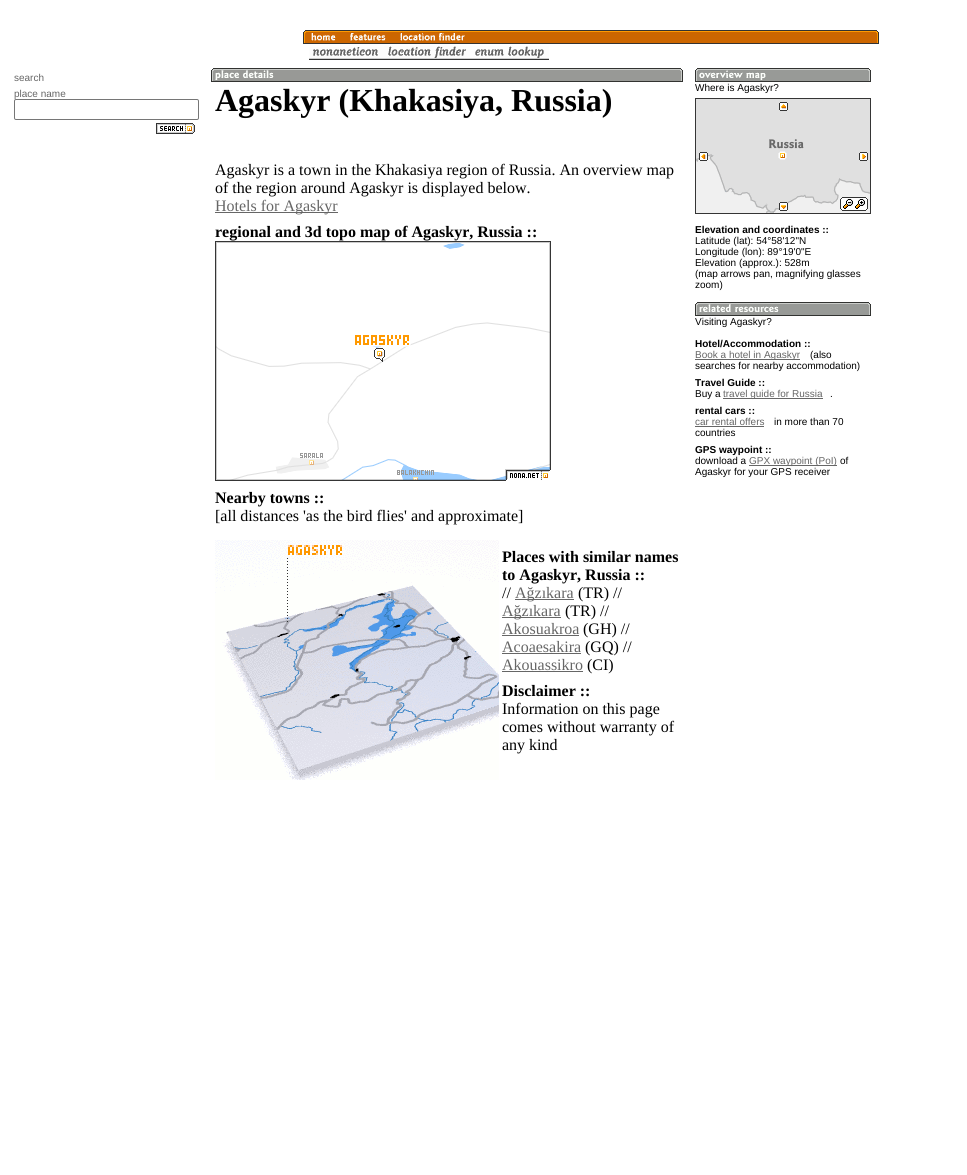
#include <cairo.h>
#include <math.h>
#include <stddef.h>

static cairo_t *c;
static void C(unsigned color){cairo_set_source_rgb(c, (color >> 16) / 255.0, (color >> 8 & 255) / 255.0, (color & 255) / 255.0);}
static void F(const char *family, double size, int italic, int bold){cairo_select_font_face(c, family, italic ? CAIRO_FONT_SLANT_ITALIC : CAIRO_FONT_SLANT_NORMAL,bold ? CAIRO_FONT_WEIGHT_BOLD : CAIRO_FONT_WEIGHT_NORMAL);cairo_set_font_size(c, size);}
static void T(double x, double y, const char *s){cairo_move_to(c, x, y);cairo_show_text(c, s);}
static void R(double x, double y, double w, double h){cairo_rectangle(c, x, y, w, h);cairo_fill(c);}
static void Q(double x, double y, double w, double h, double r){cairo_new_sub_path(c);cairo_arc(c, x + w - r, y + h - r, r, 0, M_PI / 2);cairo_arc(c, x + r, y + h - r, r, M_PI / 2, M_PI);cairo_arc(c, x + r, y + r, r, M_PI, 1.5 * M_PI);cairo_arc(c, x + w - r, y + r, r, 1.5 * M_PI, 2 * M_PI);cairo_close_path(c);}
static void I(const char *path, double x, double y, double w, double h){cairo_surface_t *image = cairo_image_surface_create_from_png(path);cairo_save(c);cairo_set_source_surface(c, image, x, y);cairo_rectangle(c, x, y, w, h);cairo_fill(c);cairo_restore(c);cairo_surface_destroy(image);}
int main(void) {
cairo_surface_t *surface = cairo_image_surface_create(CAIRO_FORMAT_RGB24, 967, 1175);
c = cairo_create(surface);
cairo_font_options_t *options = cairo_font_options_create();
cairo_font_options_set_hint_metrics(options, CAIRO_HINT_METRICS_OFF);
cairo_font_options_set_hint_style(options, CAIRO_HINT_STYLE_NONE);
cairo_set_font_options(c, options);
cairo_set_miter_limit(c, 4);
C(0xffffff);
cairo_paint(c);
I("1.png",303,30,576,14);
I("2.png",311,33,25,8);
I("3.png",350,33,36,8);
I("4.png",400,33,65,8);
I("5.png",309,47,75,13);
I("6.png",384,46,87,14);
I("7.png",471,46,78,14);
F("Liberation Sans",10,0,0);
C(0x666666);
T(14,81,"search");
T(14,97,"place name");
C(0xffffff);
Q(14.5,99.5,184,20,1.5);
cairo_fill_preserve(c);
C(0x767676);
cairo_set_line_width(c,1);
cairo_stroke(c);
I("8.png",156,123,39,11);
I("9.png",211,68,472,14);
F("Liberation Serif",32,0,1);
C(0x000000);
T(215,111,"Agaskyr (Khakasiya, Russia)");
F("Liberation Serif",16,0,0);
T(215,175,"Agaskyr is a town in the Khakasiya region of Russia. An overview map");
T(215,193,"of the region around Agaskyr is displayed below.");
C(0x666666);
R(215,212,123,1);
T(215,211,"Hotels for Agaskyr");
F("Liberation Serif",16,0,1);
C(0x000000);
T(215,237,"regional and 3d topo map of Agaskyr, Russia ::");
I("10.png",215,241,336,240);
T(215,503,"Nearby towns ::");
F("Liberation Serif",16,0,0);
T(215,521,"[all distances 'as the bird flies' and approximate]");
I("11.png",215,540,284,240);
F("Liberation Serif",16,0,1);
T(502,562,"Places with similar names");
T(502,580,"to Agaskyr, Russia ::");
F("Liberation Serif",16,0,0);
T(502,598,"//");
C(0x666666);
R(515,599,59,1);
T(515,598,"Ağzıkara");
C(0x000000);
T(578,598,"(TR) //");
C(0x666666);
R(502,617,59,1);
T(502,616,"Ağzıkara");
C(0x000000);
T(565,616,"(TR) //");
C(0x666666);
T(502,634,"Akosuakroa");
R(502,635,77,1);
C(0x000000);
T(583,634,"(GH) //");
C(0x666666);
T(502,652,"Acoaesakira");
R(502,653,79,1);
C(0x000000);
T(585,652,"(GQ) //");
C(0x666666);
T(502,670,"Akouassikro");
R(502,671,81,1);
C(0x000000);
T(587,670,"(CI)");
F("Liberation Serif",16,0,1);
T(502,696,"Disclaimer ::");
F("Liberation Serif",16,0,0);
T(502,714,"Information on this page");
T(502,732,"comes without warranty of");
T(502,750,"any kind");
I("12.png",695,68,176,14);
F("Liberation Sans",10,0,0);
T(695,91,"Where is Agaskyr?");
I("13.png",695,98,176,116);
F("Liberation Sans",10,0,1);
T(695,233,"Elevation and coordinates ::");
F("Liberation Sans",10,0,0);
T(695,244,"Latitude (lat): 54°58'12\"N");
T(695,255,"Longitude (lon): 89°19'0\"E");
T(695,266,"Elevation (approx.): 528m");
T(695,277,"(map arrows pan, magnifying glasses");
T(695,288,"zoom)");
I("14.png",695,302,176,14);
T(695,325,"Visiting Agaskyr?");
F("Liberation Sans",10,0,1);
T(695,347,"Hotel/Accommodation ::");
C(0x666666);
R(695,359,105,1);
F("Liberation Sans",10,0,0);
T(695,358,"Book a hotel in Agaskyr");
C(0x000000);
T(810,358,"(also");
T(695,369,"searches for nearby accommodation)");
F("Liberation Sans",10,0,1);
T(695,386,"Travel Guide ::");
F("Liberation Sans",10,0,0);
T(695,397,"Buy a");
C(0x666666);
R(723,398,100,1);
T(723,397,"travel guide for Russia");
C(0x000000);
T(830,397,".");
F("Liberation Sans",10,0,1);
T(695,414,"rental cars ::");
F("Liberation Sans",10,0,0);
C(0x666666);
T(695,425,"car rental offers");
R(695,426,69,1);
C(0x000000);
T(774,425,"in more than 70");
T(695,436,"countries");
F("Liberation Sans",10,0,1);
T(695,453,"GPS waypoint ::");
F("Liberation Sans",10,0,0);
T(695,464,"download a");
C(0x666666);
R(749,465,88,1);
T(749,464,"GPX waypoint (PoI)");
C(0x000000);
T(840,464,"of");
T(695,475,"Agaskyr for your GPS receiver");
cairo_surface_write_to_png(surface, "o.png");
cairo_font_options_destroy(options);
cairo_destroy(c);
cairo_surface_destroy(surface);
return 0;
}
